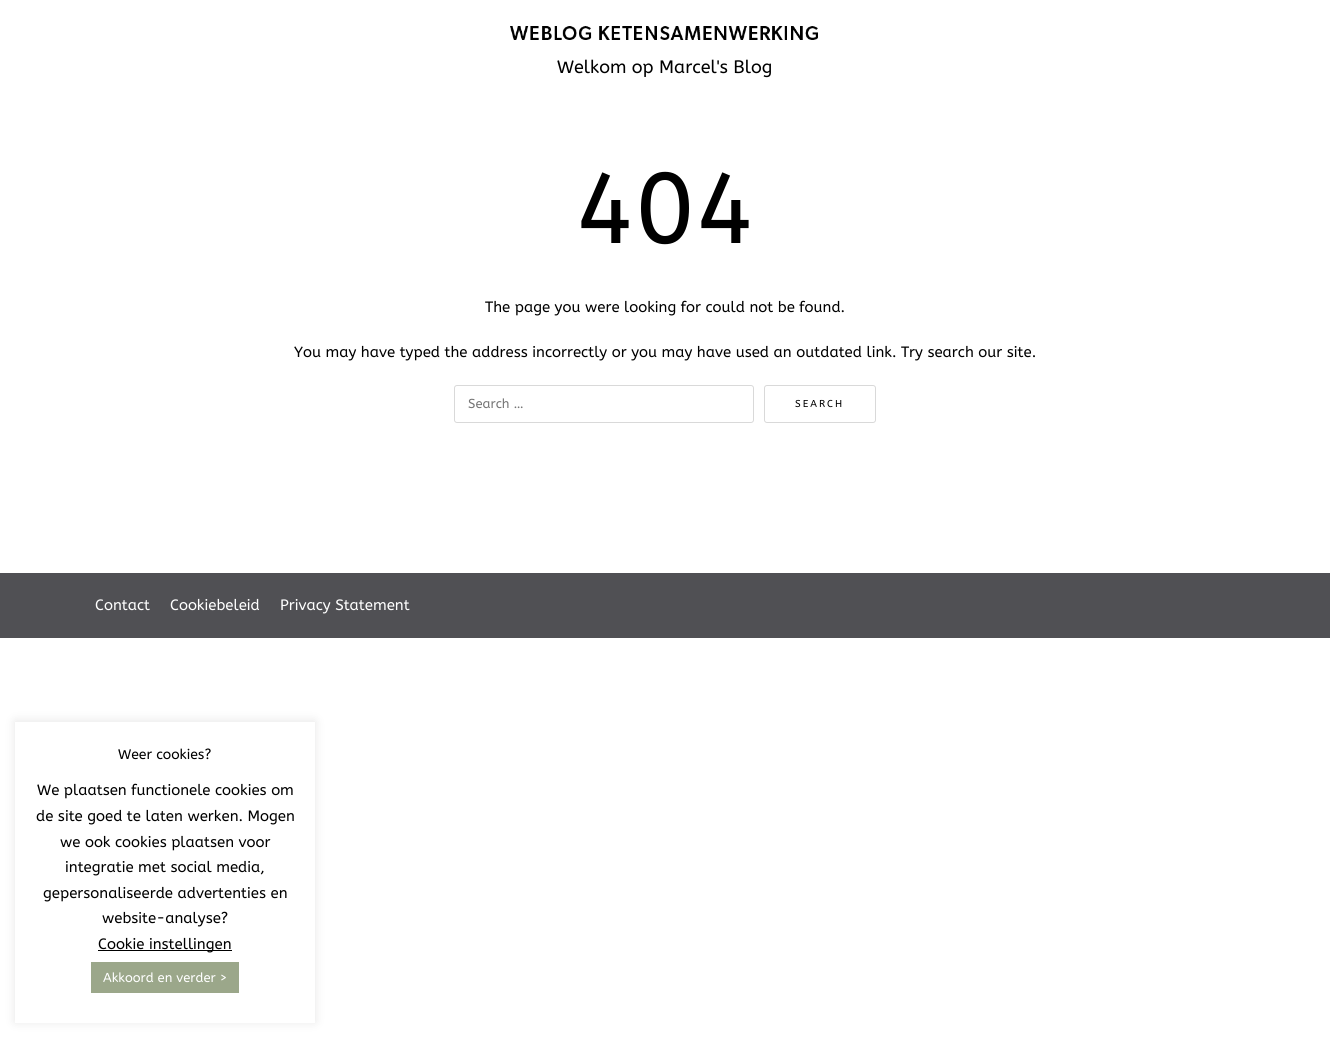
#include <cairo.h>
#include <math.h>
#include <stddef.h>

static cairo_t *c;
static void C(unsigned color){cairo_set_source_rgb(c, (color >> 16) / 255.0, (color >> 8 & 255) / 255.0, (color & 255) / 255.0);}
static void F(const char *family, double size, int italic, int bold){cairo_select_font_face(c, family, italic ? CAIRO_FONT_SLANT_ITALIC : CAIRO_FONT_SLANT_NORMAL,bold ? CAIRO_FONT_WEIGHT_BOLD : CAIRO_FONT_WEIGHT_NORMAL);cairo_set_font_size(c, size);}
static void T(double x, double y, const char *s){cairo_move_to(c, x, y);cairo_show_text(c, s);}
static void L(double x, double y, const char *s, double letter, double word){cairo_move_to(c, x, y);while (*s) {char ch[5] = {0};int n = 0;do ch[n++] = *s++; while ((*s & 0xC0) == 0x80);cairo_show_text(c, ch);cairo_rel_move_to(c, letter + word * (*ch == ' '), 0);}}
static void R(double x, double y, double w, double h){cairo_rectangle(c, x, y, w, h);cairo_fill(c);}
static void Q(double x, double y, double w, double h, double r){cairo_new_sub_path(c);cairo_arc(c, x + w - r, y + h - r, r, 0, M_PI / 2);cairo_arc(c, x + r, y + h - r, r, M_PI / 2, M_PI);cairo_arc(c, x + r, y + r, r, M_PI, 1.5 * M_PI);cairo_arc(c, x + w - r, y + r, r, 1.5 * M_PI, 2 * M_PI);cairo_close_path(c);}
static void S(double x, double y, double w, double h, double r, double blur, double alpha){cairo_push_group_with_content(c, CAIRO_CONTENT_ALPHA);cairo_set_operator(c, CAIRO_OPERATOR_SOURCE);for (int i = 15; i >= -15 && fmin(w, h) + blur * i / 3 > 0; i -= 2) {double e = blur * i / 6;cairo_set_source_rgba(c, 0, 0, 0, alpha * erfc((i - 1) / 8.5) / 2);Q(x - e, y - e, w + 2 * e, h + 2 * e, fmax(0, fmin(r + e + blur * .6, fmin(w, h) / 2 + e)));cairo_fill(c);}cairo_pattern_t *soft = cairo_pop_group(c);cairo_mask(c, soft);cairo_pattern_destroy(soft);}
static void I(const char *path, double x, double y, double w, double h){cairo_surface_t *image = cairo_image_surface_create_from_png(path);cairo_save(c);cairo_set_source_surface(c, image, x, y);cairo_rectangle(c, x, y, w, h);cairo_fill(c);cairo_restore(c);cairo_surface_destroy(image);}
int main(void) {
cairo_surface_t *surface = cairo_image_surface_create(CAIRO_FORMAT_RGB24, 1330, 1038);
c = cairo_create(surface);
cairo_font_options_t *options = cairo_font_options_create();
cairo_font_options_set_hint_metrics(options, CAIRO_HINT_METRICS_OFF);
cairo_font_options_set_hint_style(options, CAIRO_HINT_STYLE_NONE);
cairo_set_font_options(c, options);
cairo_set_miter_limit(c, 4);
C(0xffffff);
cairo_paint(c);
I("1.png",510,26,308,14);
F("ABeeZee",18,0,0);
C(0x000000);
T(557,73,"Welkom op Marcel's Blog");
F("ABeeZee",100,0,0);
T(575,243,"404");
F("ABeeZee",15,0,0);
T(485,312,"The page you were looking for could not be found.");
T(294,357,"You may have typed the address incorrectly or you may have used an outdated link. Try search our site.");
Q(454.5,385.5,299,37,2.5);
C(0xd9d9d9);
cairo_set_line_width(c,1);
cairo_stroke(c);
F("ABeeZee",13,0,0);
C(0x757575);
T(468,408,"Search …");
Q(764.5,385.5,111,37,2.5);
C(0xd9d9d9);
cairo_stroke(c);
F("ABeeZee",10,0,0);
C(0x000000);
L(795,407,"SEARCH",2,0);
C(0x505054);
R(0,573,1330,65);
F("ABeeZee",15,0,0);
C(0xffffff);
T(95,610,"Contact");
T(170,610,"Cookiebeleid");
T(280,610,"Privacy Statement");
cairo_save(c);
cairo_set_fill_rule(c,CAIRO_FILL_RULE_EVEN_ODD);
cairo_new_path(c);
cairo_move_to(c,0,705);
cairo_line_to(c,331,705);
cairo_line_to(c,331,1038);
cairo_line_to(c,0,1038);
cairo_close_path(c);
cairo_move_to(c,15,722);
cairo_line_to(c,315,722);
cairo_line_to(c,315,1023);
cairo_line_to(c,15,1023);
cairo_close_path(c);
cairo_clip(c);
C(0xacabab);
S(15,721,300,301,0,5,.3);
cairo_restore(c);
F("ABeeZee",14,0,0);
C(0x000000);
T(118,759,"Weer cookies?");
F("ABeeZee",15,0,0);
T(37,795,"We plaatsen functionele cookies om");
T(36,821,"de site goed te laten werken. Mogen");
T(60,847,"we ook cookies plaatsen voor");
T(65,872,"integratie met social media,");
T(43,898,"gepersonaliseerde advertenties en");
T(102,923,"website-analyse?");
R(98,950,134,1);
T(98,949,"Cookie instellingen");
C(0x9ba78a);
R(91,962,148,31);
F("ABeeZee",13,0,0);
C(0xffffff);
T(103,982,"Akkoord en verder >");
cairo_surface_write_to_png(surface, "o.png");
cairo_font_options_destroy(options);
cairo_destroy(c);
cairo_surface_destroy(surface);
return 0;
}
